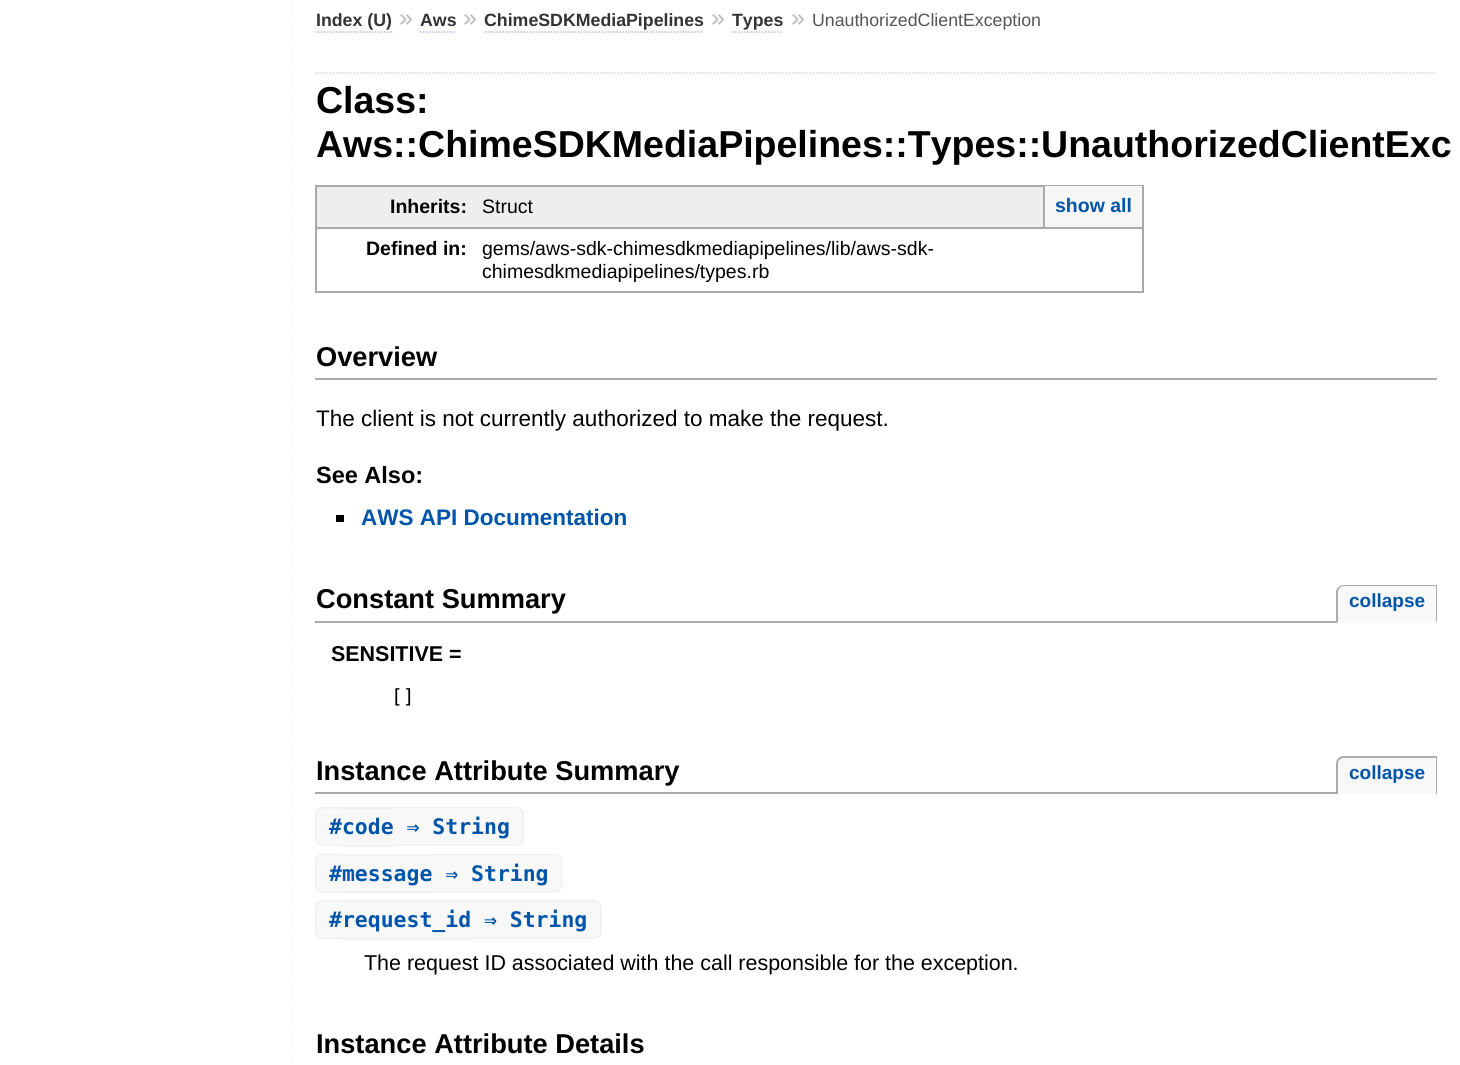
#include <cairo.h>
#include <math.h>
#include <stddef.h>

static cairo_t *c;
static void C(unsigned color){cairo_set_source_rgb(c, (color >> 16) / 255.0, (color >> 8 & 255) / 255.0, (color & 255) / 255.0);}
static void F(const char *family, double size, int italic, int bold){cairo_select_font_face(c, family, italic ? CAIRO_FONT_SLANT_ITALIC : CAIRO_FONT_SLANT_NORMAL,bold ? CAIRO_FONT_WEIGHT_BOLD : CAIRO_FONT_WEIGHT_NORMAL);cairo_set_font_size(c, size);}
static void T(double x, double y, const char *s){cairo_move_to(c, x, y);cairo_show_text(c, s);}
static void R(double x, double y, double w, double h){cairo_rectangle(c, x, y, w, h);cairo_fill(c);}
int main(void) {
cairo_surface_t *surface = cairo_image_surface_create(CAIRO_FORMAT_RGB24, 1460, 1065);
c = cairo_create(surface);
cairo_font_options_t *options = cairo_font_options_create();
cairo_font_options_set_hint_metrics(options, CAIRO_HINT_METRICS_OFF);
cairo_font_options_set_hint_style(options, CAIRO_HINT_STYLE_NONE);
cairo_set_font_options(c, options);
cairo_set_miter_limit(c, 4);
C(0xffffff);
cairo_paint(c);
cairo_new_path(c);
cairo_move_to(c,293,0);
cairo_line_to(c,293,1065);
C(0xeeeeee);
cairo_set_line_width(c,1.5);
cairo_set_dash(c,(double[]){1.5,1.5},2,0);
cairo_stroke(c);
C(0xffffff);
R(293,0,1,1064);
F("Liberation Sans",17.75,0,1);
C(0x333333);
T(316,26,"Index (U)");
cairo_new_path(c);
cairo_move_to(c,315,32);
cairo_line_to(c,391.5,32);
C(0xbbbbdd);
cairo_stroke(c);
F("Liberation Sans",25,0,0);
C(0xbbbbbb);
T(399,26,"»");
F("Liberation Sans",17.75,0,1);
C(0x333333);
T(420,26,"Aws");
cairo_new_path(c);
cairo_move_to(c,420,32);
cairo_line_to(c,456,32);
C(0xbbbbdd);
cairo_stroke(c);
F("Liberation Sans",25,0,0);
C(0xbbbbbb);
T(463,26,"»");
F("Liberation Sans",17.75,0,1);
C(0x333333);
T(484,26,"ChimeSDKMediaPipelines");
cairo_new_path(c);
cairo_move_to(c,484.5,32);
cairo_line_to(c,703.5,32);
C(0xbbbbdd);
cairo_stroke(c);
F("Liberation Sans",25,0,0);
C(0xbbbbbb);
T(711,26,"»");
F("Liberation Sans",17.75,0,1);
C(0x333333);
T(732,26,"Types");
cairo_new_path(c);
cairo_move_to(c,732,32);
cairo_line_to(c,783,32);
C(0xbbbbdd);
cairo_stroke(c);
F("Liberation Sans",25,0,0);
C(0xbbbbbb);
T(791,26,"»");
F("Liberation Sans",17.75,0,0);
C(0x555555);
T(812,26,"UnauthorizedClientException");
cairo_new_path(c);
cairo_move_to(c,315,73);
cairo_line_to(c,1437,73);
C(0xd5d5d5);
cairo_stroke(c);
F("Liberation Sans",37.5,0,1);
C(0x000000);
T(316,113,"Class:");
T(316,157,"Aws::ChimeSDKMediaPipelines::Types::UnauthorizedClientExc");
C(0xeeeeee);
R(317,187,726,40);
C(0xaaaaaa);
R(315,185,828,2);
R(315,185,2,42);
F("Liberation Sans",19.5,0,1);
C(0x000000);
T(390,213,"Inherits:");
C(0xaaaaaa);
R(315,227,828,2);
R(1142,185,2,108);
F("Liberation Sans",19.5,0,0);
C(0x000000);
T(482,213,"Struct");
C(0xf6f6f6);
R(1045,186,97,41);
C(0xaaaaaa);
R(1043,186,2,41);
F("Liberation Sans",19.5,0,1);
C(0x0055aa);
T(1055,212,"show all");
C(0xaaaaaa);
R(315,291,167,2);
R(315,227,2,66);
C(0x000000);
T(366,255,"Defined in:");
C(0xaaaaaa);
R(482,291,661,2);
F("Liberation Sans",19.5,0,0);
C(0x000000);
T(482,255,"gems/aws-sdk-chimesdkmediapipelines/lib/aws-sdk-");
T(482,278,"chimesdkmediapipelines/types.rb");
C(0xaaaaaa);
R(315,378,1122,2);
F("Liberation Sans",27.25,0,1);
C(0x000000);
T(316,366,"Overview");
F("Liberation Sans",22.5,0,0);
T(316,426,"The client is not currently authorized to make the request.");
F("Liberation Sans",23.5,0,1);
T(316,483,"See Also:");
R(336,515,8,7);
F("Liberation Sans",22.5,0,1);
C(0x0055aa);
T(361,525,"AWS API Documentation");
C(0xaaaaaa);
R(315,621,1022,2);
F("Liberation Sans",27.25,0,1);
C(0x000000);
T(316,608,"Constant Summary");
C(0xf8f8f8);
cairo_new_path(c);
cairo_move_to(c,1345,585);
cairo_line_to(c,1437,585);
cairo_line_to(c,1437,623);
cairo_line_to(c,1337,623);
cairo_line_to(c,1337,593);
cairo_curve_to(c,1337,588.5,1340.5,585,1345,585);
cairo_close_path(c);
cairo_fill(c);
C(0xaaaaaa);
cairo_set_fill_rule(c,CAIRO_FILL_RULE_EVEN_ODD);
cairo_new_path(c);
cairo_move_to(c,1344,585);
cairo_line_to(c,1437,585);
cairo_line_to(c,1437,622);
cairo_line_to(c,1336,622);
cairo_line_to(c,1336,592);
cairo_curve_to(c,1336,588,1340,585,1344,585);
cairo_close_path(c);
cairo_move_to(c,1344,586);
cairo_line_to(c,1436,586);
cairo_line_to(c,1436,622);
cairo_line_to(c,1338,622);
cairo_line_to(c,1338,592);
cairo_curve_to(c,1338,589,1341,586,1344,586);
cairo_close_path(c);
cairo_fill(c);
F("Liberation Sans",19,0,1);
C(0x0055aa);
T(1349,607,"collapse");
F("Liberation Sans",21.45,0,1);
C(0x000000);
T(331,661,"SENSITIVE =");
F("DejaVu Sans Mono",19.5,0,0);
T(391,703,"[]");
C(0xaaaaaa);
R(315,792,1021,2);
F("Liberation Sans",27.25,0,1);
C(0x000000);
T(316,780,"Instance Attribute Summary");
C(0xf8f8f8);
cairo_new_path(c);
cairo_move_to(c,1345,756);
cairo_line_to(c,1437,756);
cairo_line_to(c,1437,794);
cairo_line_to(c,1337,794);
cairo_line_to(c,1337,764);
cairo_curve_to(c,1337,759.5,1340.5,756,1345,756);
cairo_close_path(c);
cairo_fill(c);
C(0xaaaaaa);
cairo_new_path(c);
cairo_move_to(c,1344,756);
cairo_line_to(c,1437,756);
cairo_line_to(c,1437,794);
cairo_line_to(c,1336,794);
cairo_line_to(c,1336,764);
cairo_curve_to(c,1336,759,1340,756,1344,756);
cairo_close_path(c);
cairo_move_to(c,1344,758);
cairo_line_to(c,1436,758);
cairo_line_to(c,1436,794);
cairo_line_to(c,1338,794);
cairo_line_to(c,1338,764);
cairo_curve_to(c,1338,760,1341,758,1344,758);
cairo_close_path(c);
cairo_fill(c);
F("Liberation Sans",19,0,1);
C(0x0055aa);
T(1349,779,"collapse");
C(0xf8f8f8);
cairo_new_path(c);
cairo_move_to(c,323,807);
cairo_line_to(c,342,807);
cairo_line_to(c,342,846);
cairo_line_to(c,323,846);
cairo_curve_to(c,318.5,846,315,842.5,315,838);
cairo_line_to(c,315,815);
cairo_curve_to(c,315,810.5,318.5,807,323,807);
cairo_close_path(c);
cairo_fill(c);
C(0xf0f0f0);
cairo_new_path(c);
cairo_move_to(c,322.5,807);
cairo_line_to(c,342,807);
cairo_line_to(c,342,846);
cairo_line_to(c,322.5,846);
cairo_curve_to(c,318.5,846,315,842.5,315,838.5);
cairo_line_to(c,315,814.5);
cairo_curve_to(c,315,810.5,318.5,807,322.5,807);
cairo_close_path(c);
cairo_move_to(c,322.5,808.5);
cairo_line_to(c,342,808.5);
cairo_line_to(c,342,844.5);
cairo_line_to(c,322.5,844.5);
cairo_curve_to(c,319,844.5,316.5,842,316.5,838.5);
cairo_line_to(c,316.5,814.5);
cairo_curve_to(c,316.5,811,319,808.5,322.5,808.5);
cairo_close_path(c);
cairo_fill(c);
C(0xf8f8f8);
R(342,809,51,36);
cairo_new_path(c);
cairo_move_to(c,393,807);
cairo_line_to(c,516,807);
cairo_curve_to(c,520.5,807,524,810.5,524,815);
cairo_line_to(c,524,838);
cairo_curve_to(c,524,842.5,520.5,846,516,846);
cairo_line_to(c,393,846);
cairo_close_path(c);
cairo_fill(c);
C(0xf0f0f0);
cairo_new_path(c);
cairo_move_to(c,393,807);
cairo_line_to(c,516,807);
cairo_curve_to(c,520,807,524,810,524,814);
cairo_line_to(c,524,838);
cairo_curve_to(c,524,843,520,846,516,846);
cairo_line_to(c,393,846);
cairo_close_path(c);
cairo_move_to(c,393,808);
cairo_line_to(c,516,808);
cairo_curve_to(c,519,808,522,811,522,814);
cairo_line_to(c,522,838);
cairo_curve_to(c,522,842,519,844,516,844);
cairo_line_to(c,393,844);
cairo_close_path(c);
cairo_fill(c);
F("DejaVu Sans Mono",21.45,0,1);
C(0x0055aa);
T(329,834,"#code ⇒ String");
C(0xf0f0f0);
R(342,807,51,2);
R(342,845,51,2);
C(0xf8f8f8);
cairo_new_path(c);
cairo_move_to(c,323,854);
cairo_line_to(c,342,854);
cairo_line_to(c,342,893);
cairo_line_to(c,323,893);
cairo_curve_to(c,318.5,893,315,889.5,315,885);
cairo_line_to(c,315,862);
cairo_curve_to(c,315,857.5,318.5,854,323,854);
cairo_close_path(c);
cairo_fill(c);
C(0xf0f0f0);
cairo_new_path(c);
cairo_move_to(c,322.5,853.5);
cairo_line_to(c,342,853.5);
cairo_line_to(c,342,892.5);
cairo_line_to(c,322.5,892.5);
cairo_curve_to(c,318.5,892.5,315,889,315,885);
cairo_line_to(c,315,861);
cairo_curve_to(c,315,857,318.5,853.5,322.5,853.5);
cairo_close_path(c);
cairo_move_to(c,322.5,855);
cairo_line_to(c,342,855);
cairo_line_to(c,342,891);
cairo_line_to(c,322.5,891);
cairo_curve_to(c,319,891,316.5,888.5,316.5,885);
cairo_line_to(c,316.5,861);
cairo_curve_to(c,316.5,857.5,319,855,322.5,855);
cairo_close_path(c);
cairo_fill(c);
C(0xf8f8f8);
R(342,856,90,35);
cairo_new_path(c);
cairo_move_to(c,432,854);
cairo_line_to(c,555,854);
cairo_curve_to(c,559.5,854,563,857.5,563,862);
cairo_line_to(c,563,885);
cairo_curve_to(c,563,889.5,559.5,893,555,893);
cairo_line_to(c,432,893);
cairo_close_path(c);
cairo_fill(c);
C(0xf0f0f0);
cairo_new_path(c);
cairo_move_to(c,432,854);
cairo_line_to(c,555,854);
cairo_curve_to(c,559,854,562,857,562,861);
cairo_line_to(c,562,885);
cairo_curve_to(c,562,889,559,892,555,892);
cairo_line_to(c,432,892);
cairo_close_path(c);
cairo_move_to(c,432,855);
cairo_line_to(c,555,855);
cairo_curve_to(c,558,855,561,858,561,861);
cairo_line_to(c,561,885);
cairo_curve_to(c,561,888,558,891,555,891);
cairo_line_to(c,432,891);
cairo_close_path(c);
cairo_fill(c);
C(0x0055aa);
T(329,881,"#message ⇒ String");
C(0xf0f0f0);
R(342,854,90,2);
R(342,891,90,2);
C(0xf8f8f8);
cairo_new_path(c);
cairo_move_to(c,323,900);
cairo_line_to(c,342,900);
cairo_line_to(c,342,939);
cairo_line_to(c,323,939);
cairo_curve_to(c,318.5,939,315,935.5,315,931);
cairo_line_to(c,315,908);
cairo_curve_to(c,315,903.5,318.5,900,323,900);
cairo_close_path(c);
cairo_fill(c);
C(0xf0f0f0);
cairo_new_path(c);
cairo_move_to(c,322.5,900);
cairo_line_to(c,342,900);
cairo_line_to(c,342,939);
cairo_line_to(c,322.5,939);
cairo_curve_to(c,318.5,939,315,935.5,315,931.5);
cairo_line_to(c,315,907.5);
cairo_curve_to(c,315,903.5,318.5,900,322.5,900);
cairo_close_path(c);
cairo_move_to(c,322.5,901.5);
cairo_line_to(c,342,901.5);
cairo_line_to(c,342,937.5);
cairo_line_to(c,322.5,937.5);
cairo_curve_to(c,319,937.5,316.5,935,316.5,931.5);
cairo_line_to(c,316.5,907.5);
cairo_curve_to(c,316.5,904,319,901.5,322.5,901.5);
cairo_close_path(c);
cairo_fill(c);
C(0xf8f8f8);
R(342,902,129,36);
cairo_new_path(c);
cairo_move_to(c,471,900);
cairo_line_to(c,594,900);
cairo_curve_to(c,598.5,900,602,903.5,602,908);
cairo_line_to(c,602,931);
cairo_curve_to(c,602,935.5,598.5,939,594,939);
cairo_line_to(c,471,939);
cairo_close_path(c);
cairo_fill(c);
C(0xf0f0f0);
cairo_new_path(c);
cairo_move_to(c,471,900);
cairo_line_to(c,594,900);
cairo_curve_to(c,598,900,602,903,602,908);
cairo_line_to(c,602,932);
cairo_curve_to(c,602,936,598,939,594,939);
cairo_line_to(c,471,939);
cairo_close_path(c);
cairo_move_to(c,471,902);
cairo_line_to(c,594,902);
cairo_curve_to(c,597,902,600,904,600,908);
cairo_line_to(c,600,932);
cairo_curve_to(c,600,935,597,938,594,938);
cairo_line_to(c,471,938);
cairo_close_path(c);
cairo_fill(c);
C(0x0055aa);
T(329,927,"#request_id ⇒ String");
C(0xf0f0f0);
R(342,900,129,2);
R(342,938,129,2);
F("Liberation Sans",21.45,0,0);
C(0x000000);
T(364,970,"The request ID associated with the call responsible for the exception.");
F("Liberation Sans",27.25,0,1);
T(316,1053,"Instance Attribute Details");
cairo_surface_write_to_png(surface, "o.png");
cairo_font_options_destroy(options);
cairo_destroy(c);
cairo_surface_destroy(surface);
return 0;
}
